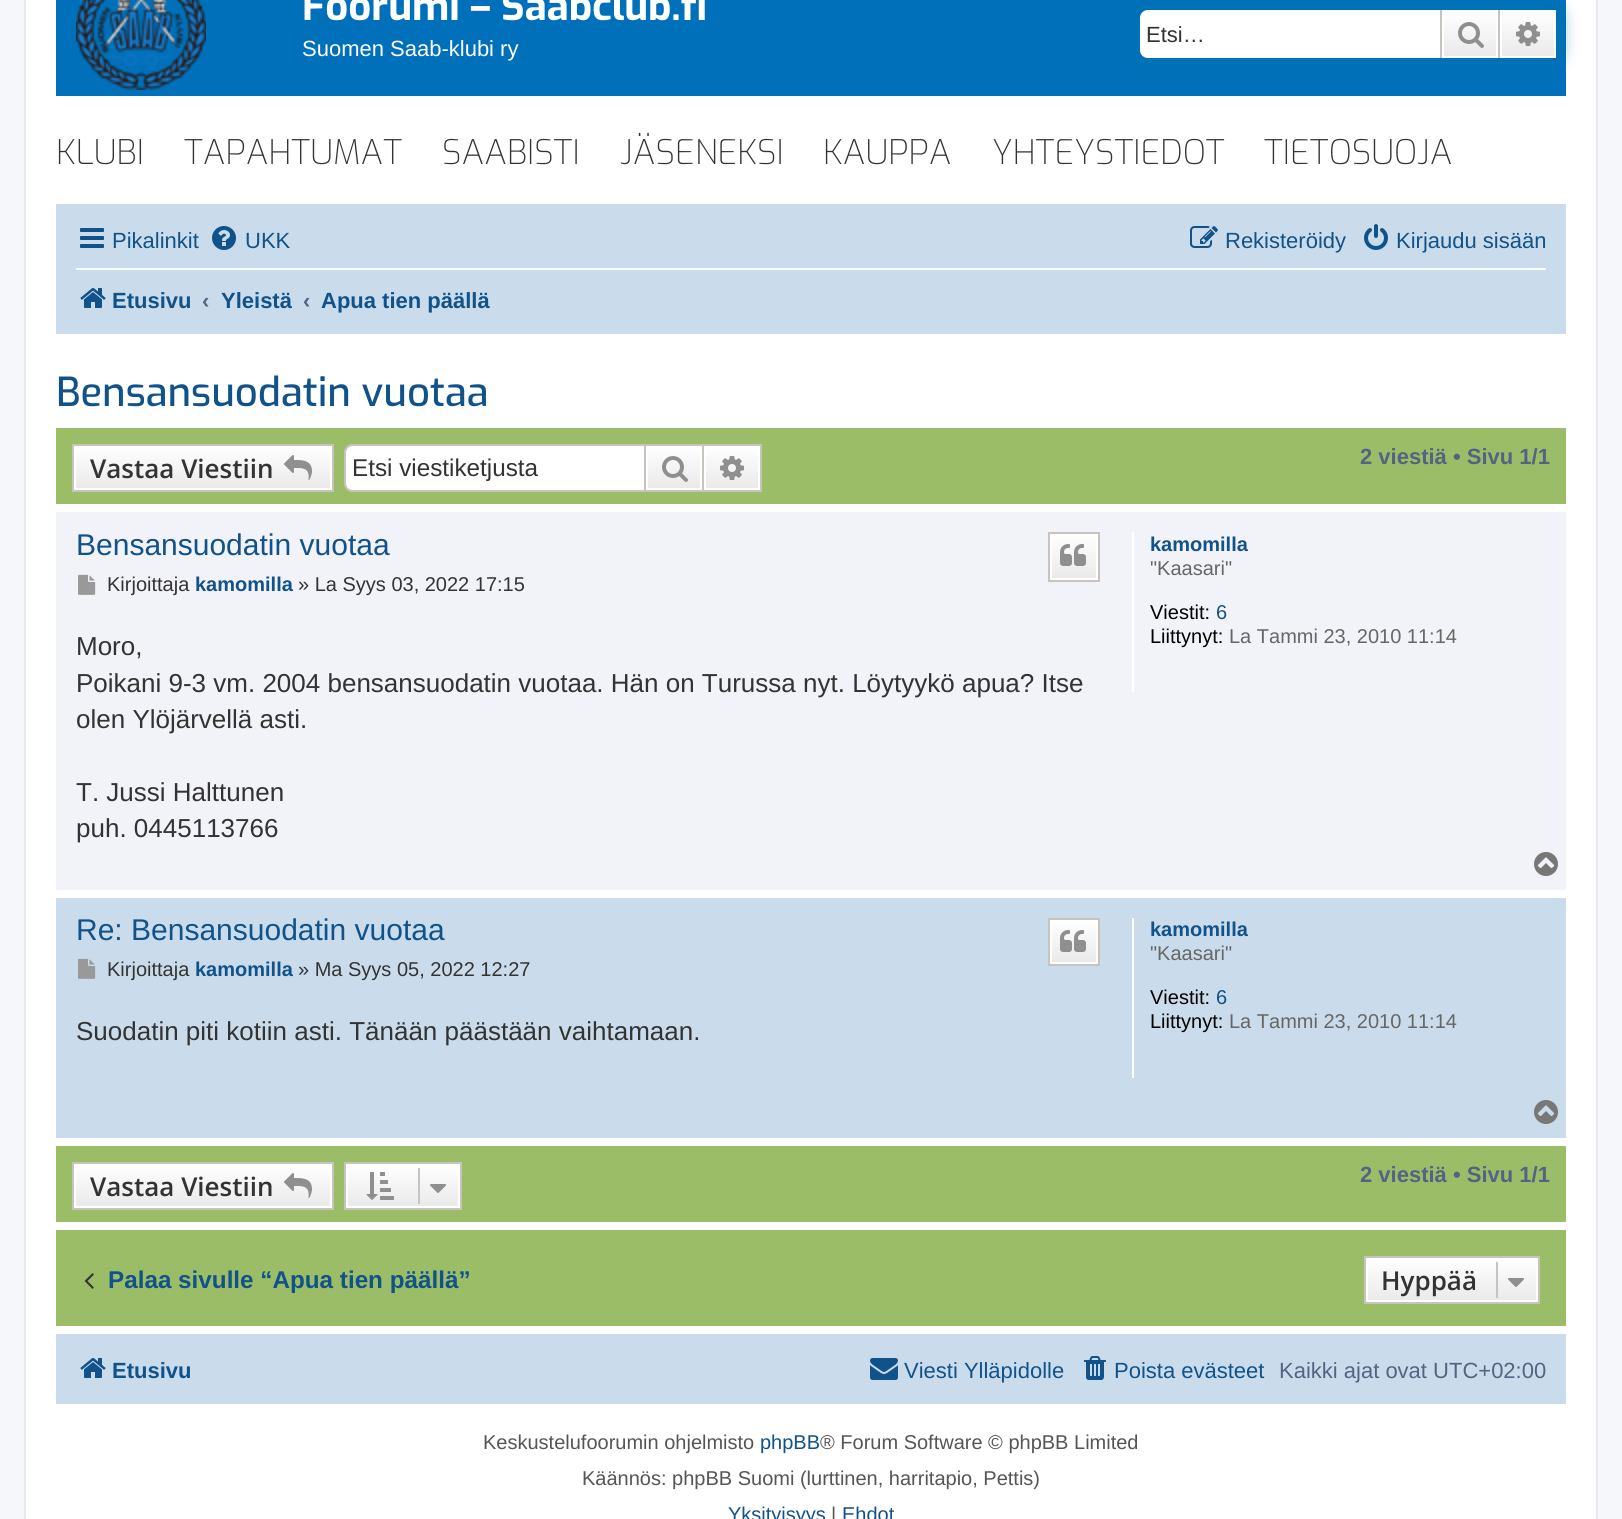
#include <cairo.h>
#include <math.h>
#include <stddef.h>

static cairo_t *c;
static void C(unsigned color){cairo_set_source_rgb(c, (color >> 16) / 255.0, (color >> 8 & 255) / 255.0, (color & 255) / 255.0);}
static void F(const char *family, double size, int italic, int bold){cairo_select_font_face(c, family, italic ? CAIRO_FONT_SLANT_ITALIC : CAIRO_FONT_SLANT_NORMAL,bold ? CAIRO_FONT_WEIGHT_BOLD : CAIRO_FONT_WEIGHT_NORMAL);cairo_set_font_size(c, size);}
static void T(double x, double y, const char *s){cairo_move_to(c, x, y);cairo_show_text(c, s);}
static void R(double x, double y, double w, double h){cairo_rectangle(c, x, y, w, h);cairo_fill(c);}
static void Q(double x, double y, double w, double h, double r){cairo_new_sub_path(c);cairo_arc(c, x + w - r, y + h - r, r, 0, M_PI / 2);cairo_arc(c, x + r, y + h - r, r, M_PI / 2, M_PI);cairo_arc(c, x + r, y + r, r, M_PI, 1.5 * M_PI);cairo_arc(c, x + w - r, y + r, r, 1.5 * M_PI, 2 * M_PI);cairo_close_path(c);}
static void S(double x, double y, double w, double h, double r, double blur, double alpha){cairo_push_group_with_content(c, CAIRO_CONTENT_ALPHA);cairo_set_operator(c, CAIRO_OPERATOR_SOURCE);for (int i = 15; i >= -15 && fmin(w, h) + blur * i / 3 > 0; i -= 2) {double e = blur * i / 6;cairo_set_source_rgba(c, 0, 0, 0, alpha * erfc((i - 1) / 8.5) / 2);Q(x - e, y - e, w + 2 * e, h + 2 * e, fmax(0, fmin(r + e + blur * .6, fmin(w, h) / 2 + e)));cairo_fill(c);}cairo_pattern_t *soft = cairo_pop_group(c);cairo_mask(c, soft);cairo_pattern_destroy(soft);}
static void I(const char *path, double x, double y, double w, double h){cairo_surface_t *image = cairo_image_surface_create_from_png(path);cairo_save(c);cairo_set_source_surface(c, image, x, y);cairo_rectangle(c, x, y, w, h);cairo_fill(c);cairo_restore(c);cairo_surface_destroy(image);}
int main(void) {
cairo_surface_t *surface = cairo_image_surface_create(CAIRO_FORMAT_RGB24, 1622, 1519);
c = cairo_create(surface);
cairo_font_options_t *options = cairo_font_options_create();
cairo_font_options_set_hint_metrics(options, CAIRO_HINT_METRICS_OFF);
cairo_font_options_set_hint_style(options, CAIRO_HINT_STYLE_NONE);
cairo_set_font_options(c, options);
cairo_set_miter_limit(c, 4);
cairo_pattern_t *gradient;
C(0xf5f7fa);
cairo_paint(c);
C(0xffffff);
cairo_rectangle(c,25,-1,1572,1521);
cairo_fill_preserve(c);
C(0xe6e9ed);
cairo_stroke(c);
C(0x0070ba);
R(56,0,1510,96);
I("1.png",76,0,130,90);
F("Exo",40,0,1);
C(0xffffff);
T(302,20,"Foorumi – Saabclub.fi");
F("Liberation Sans",22,0,0);
T(302,56,"Suomen Saab-klubi ry");
C(0x0075b0);
S(1140,10,416,48,8,10,1);
C(0xffffff);
cairo_new_path(c);
cairo_move_to(c,1148,10);
cairo_line_to(c,1440,10);
cairo_line_to(c,1440,58);
cairo_line_to(c,1148,58);
cairo_curve_to(c,1143.5,58,1140,54.5,1140,50);
cairo_line_to(c,1140,18);
cairo_curve_to(c,1140,13.5,1143.5,10,1148,10);
cairo_close_path(c);
cairo_fill(c);
C(0x333333);
T(1146,42,"Etsi…");
gradient = cairo_pattern_create_linear(1470,10,1470,58);
cairo_pattern_add_color_stop_rgba(gradient,0,1,1,1,1);
cairo_pattern_add_color_stop_rgba(gradient,1,0.914,0.914,0.914,1);
cairo_set_source(c,gradient);
cairo_pattern_destroy(gradient);
R(1444,12,52,44);
cairo_rectangle(c,1443,11,54,46);
C(0xffffff);
cairo_stroke(c);
C(0xc7c3bf);
R(1498,10,2,48);
R(1440,10,2,48);
I("2.png",1458,22,26,26);
gradient = cairo_pattern_create_linear(1528,10,1528,58);
cairo_pattern_add_color_stop_rgba(gradient,0,1,1,1,1);
cairo_pattern_add_color_stop_rgba(gradient,1,0.914,0.914,0.914,1);
cairo_set_source(c,gradient);
cairo_pattern_destroy(gradient);
R(1502,12,52,44);
cairo_rectangle(c,1501,11,54,46);
C(0xffffff);
cairo_stroke(c);
I("3.png",1516,22,24,24);
F("Exo ExtraLight",34,0,0);
C(0x333333);
T(56,164,"KLUBI");
T(184,164,"TAPAHTUMAT");
T(442,164,"SAABISTI");
T(620,164,"JÄSENEKSI");
T(823,164,"KAUPPA");
T(992,164,"YHTEYSTIEDOT");
T(1264,164,"TIETOSUOJA");
C(0xcadceb);
R(56,204,1510,130);
I("4.png",80,228,24,20);
F("Liberation Sans",22,0,0);
C(0x105289);
T(112,248,"Pikalinkit");
I("5.png",212,226,24,24);
T(245,248,"UKK");
I("6.png",1190,226,28,22);
T(1225,248,"Rekisteröidy");
I("7.png",1364,224,24,26);
T(1396,248,"Kirjaudu sisään");
C(0xffffff);
R(76,268,1470,2);
I("8.png",80,288,26,20);
F("Liberation Sans",22,0,1);
C(0x105289);
T(112,308,"Etusivu");
C(0x536482);
T(202,308,"‹");
C(0x105289);
T(221,308,"Yleistä");
C(0x536482);
T(303,308,"‹");
C(0x105289);
T(321,308,"Apua tien päällä");
F("Exo Medium",40,0,0);
T(56,406,"Bensansuodatin vuotaa");
C(0x9cbd67);
R(56,428,1510,76);
gradient = cairo_pattern_create_linear(203,446,203,490);
cairo_pattern_add_color_stop_rgba(gradient,0,1,1,1,1);
cairo_pattern_add_color_stop_rgba(gradient,1,0.914,0.914,0.914,1);
cairo_set_source(c,gradient);
cairo_pattern_destroy(gradient);
R(76,448,254,40);
cairo_rectangle(c,75,447,256,42);
C(0xffffff);
cairo_stroke(c);
cairo_rectangle(c,73,445,260,46);
C(0xc7c3bf);
cairo_stroke(c);
F("Open Sans SemiBold",26,0,0);
C(0x333333);
T(90,478,"Vastaa Viestiin");
I("9.png",284,455,28,25);
C(0xffffff);
cairo_new_path(c);
cairo_move_to(c,352,446);
cairo_line_to(c,644,446);
cairo_line_to(c,644,490);
cairo_line_to(c,352,490);
cairo_curve_to(c,348.5,490,346,487.5,346,484);
cairo_line_to(c,346,452);
cairo_curve_to(c,346,448.5,348.5,446,352,446);
cairo_close_path(c);
cairo_fill(c);
C(0xc7c3bf);
cairo_set_fill_rule(c,CAIRO_FILL_RULE_EVEN_ODD);
cairo_new_path(c);
cairo_move_to(c,352,444);
cairo_line_to(c,644,444);
cairo_line_to(c,644,492);
cairo_line_to(c,352,492);
cairo_curve_to(c,348,492,344,488,344,484);
cairo_line_to(c,344,452);
cairo_curve_to(c,344,448,348,444,352,444);
cairo_close_path(c);
cairo_move_to(c,352,446);
cairo_line_to(c,644,446);
cairo_line_to(c,644,490);
cairo_line_to(c,352,490);
cairo_curve_to(c,349,490,346,487,346,484);
cairo_line_to(c,346,452);
cairo_curve_to(c,346,449,349,446,352,446);
cairo_close_path(c);
cairo_fill(c);
F("Liberation Sans",24.25,0,0);
C(0x333333);
T(352,476,"Etsi viestiketjusta");
gradient = cairo_pattern_create_linear(674,446,674,490);
cairo_pattern_add_color_stop_rgba(gradient,0,1,1,1,1);
cairo_pattern_add_color_stop_rgba(gradient,1,0.914,0.914,0.914,1);
cairo_set_source(c,gradient);
cairo_pattern_destroy(gradient);
R(648,448,52,40);
cairo_rectangle(c,647,447,54,42);
C(0xffffff);
cairo_stroke(c);
cairo_rectangle(c,645,445,58,46);
C(0xc7c3bf);
cairo_stroke(c);
I("10.png",662,456,26,26);
gradient = cairo_pattern_create_linear(732,446,732,490);
cairo_pattern_add_color_stop_rgba(gradient,0,1,1,1,1);
cairo_pattern_add_color_stop_rgba(gradient,1,0.914,0.914,0.914,1);
cairo_set_source(c,gradient);
cairo_pattern_destroy(gradient);
R(706,448,52,40);
cairo_rectangle(c,705,447,54,42);
C(0xffffff);
cairo_stroke(c);
C(0xc7c3bf);
R(704,444,58,2);
R(760,444,2,48);
R(704,490,58,2);
I("11.png",720,456,24,24);
F("Liberation Sans",22,0,1);
C(0x536482);
T(1360,464,"2 viestiä • Sivu 1/1");
C(0xf2f2f9);
R(56,512,1510,378);
F("Liberation Sans",30,0,0);
C(0x105289);
T(76,555,"Bensansuodatin vuotaa");
gradient = cairo_pattern_create_linear(1074,534,1074,580);
cairo_pattern_add_color_stop_rgba(gradient,0,1,1,1,1);
cairo_pattern_add_color_stop_rgba(gradient,1,0.914,0.914,0.914,1);
cairo_set_source(c,gradient);
cairo_pattern_destroy(gradient);
R(1052,536,44,42);
cairo_rectangle(c,1051,535,46,44);
C(0xffffff);
cairo_stroke(c);
cairo_rectangle(c,1049,533,50,48);
C(0xc7c3bf);
cairo_stroke(c);
I("12.png",1060,544,26,22);
I("13.png",78,574,18,21);
F("Liberation Sans",20,0,0);
C(0x333333);
T(107,591,"Kirjoittaja");
F("Liberation Sans",20,0,1);
C(0x105289);
T(195,591,"kamomilla");
F("Liberation Sans",20,0,0);
C(0x333333);
T(298,591,"» La Syys 03, 2022 17:15");
F("Liberation Sans",26,0,0);
T(76,655,"Moro,");
T(76,692,"Poikani 9-3 vm. 2004 bensansuodatin vuotaa. Hän on Turussa nyt. Löytyykö apua? Itse");
T(76,728,"olen Ylöjärvellä asti.");
T(76,801,"T. Jussi Halttunen");
T(76,837,"puh. 0445113766");
C(0xffffff);
R(1132,532,2,160);
F("Liberation Sans",20,0,1);
C(0x105289);
T(1150,551,"kamomilla");
F("Liberation Sans",20,0,0);
C(0x666666);
T(1150,575,"\"Kaasari\"");
C(0x000000);
T(1150,619,"Viestit:");
C(0x105289);
T(1216,619,"6");
C(0x000000);
T(1150,643,"Liittynyt:");
C(0x666666);
T(1229,643,"La Tammi 23, 2010 11:14");
I("14.png",1534,852,24,24);
C(0xcadceb);
R(56,898,1510,240);
F("Liberation Sans",30,0,0);
C(0x105289);
T(76,940,"Re: Bensansuodatin vuotaa");
gradient = cairo_pattern_create_linear(1074,920,1074,964);
cairo_pattern_add_color_stop_rgba(gradient,0,1,1,1,1);
cairo_pattern_add_color_stop_rgba(gradient,1,0.914,0.914,0.914,1);
cairo_set_source(c,gradient);
cairo_pattern_destroy(gradient);
R(1052,922,44,40);
cairo_rectangle(c,1051,921,46,42);
C(0xffffff);
cairo_stroke(c);
cairo_rectangle(c,1049,919,50,46);
C(0xc7c3bf);
cairo_stroke(c);
I("15.png",1060,930,26,22);
I("16.png",78,958,18,21);
F("Liberation Sans",20,0,0);
C(0x333333);
T(107,976,"Kirjoittaja");
F("Liberation Sans",20,0,1);
C(0x105289);
T(195,976,"kamomilla");
F("Liberation Sans",20,0,0);
C(0x333333);
T(298,976,"» Ma Syys 05, 2022 12:27");
F("Liberation Sans",26,0,0);
T(76,1040,"Suodatin piti kotiin asti. Tänään päästään vaihtamaan.");
C(0xffffff);
R(1132,918,2,160);
F("Liberation Sans",20,0,1);
C(0x105289);
T(1150,936,"kamomilla");
F("Liberation Sans",20,0,0);
C(0x666666);
T(1150,960,"\"Kaasari\"");
C(0x000000);
T(1150,1004,"Viestit:");
C(0x105289);
T(1216,1004,"6");
C(0x000000);
T(1150,1028,"Liittynyt:");
C(0x666666);
T(1229,1028,"La Tammi 23, 2010 11:14");
I("17.png",1534,1100,24,24);
C(0x9cbd67);
R(56,1146,1510,76);
gradient = cairo_pattern_create_linear(203,1164,203,1208);
cairo_pattern_add_color_stop_rgba(gradient,0,1,1,1,1);
cairo_pattern_add_color_stop_rgba(gradient,1,0.914,0.914,0.914,1);
cairo_set_source(c,gradient);
cairo_pattern_destroy(gradient);
R(76,1166,254,40);
cairo_rectangle(c,75,1165,256,42);
C(0xffffff);
cairo_stroke(c);
cairo_rectangle(c,73,1163,260,46);
C(0xc7c3bf);
cairo_stroke(c);
F("Open Sans SemiBold",26,0,0);
C(0x333333);
T(90,1196,"Vastaa Viestiin");
I("9.png",284,1173,28,25);
gradient = cairo_pattern_create_linear(403,1164,403,1208);
cairo_pattern_add_color_stop_rgba(gradient,0,1,1,1,1);
cairo_pattern_add_color_stop_rgba(gradient,1,0.914,0.914,0.914,1);
cairo_set_source(c,gradient);
cairo_pattern_destroy(gradient);
R(348,1166,110,40);
cairo_rectangle(c,347,1165,112,42);
C(0xffffff);
cairo_stroke(c);
cairo_rectangle(c,345,1163,116,46);
C(0xc7c3bf);
cairo_stroke(c);
I("18.png",366,1172,28,28);
R(418,1168,2,36);
I("19.png",430,1184,16,9);
F("Liberation Sans",22,0,1);
C(0x536482);
T(1360,1182,"2 viestiä • Sivu 1/1");
C(0x9cbd67);
R(56,1230,1510,96);
I("20.png",84,1273,10,16);
F("Liberation Sans",24.25,0,1);
C(0x105289);
T(108,1288,"Palaa sivulle “Apua tien päällä”");
gradient = cairo_pattern_create_linear(1452,1258,1452,1302);
cairo_pattern_add_color_stop_rgba(gradient,0,1,1,1,1);
cairo_pattern_add_color_stop_rgba(gradient,1,0.914,0.914,0.914,1);
cairo_set_source(c,gradient);
cairo_pattern_destroy(gradient);
R(1368,1260,168,40);
cairo_rectangle(c,1367,1259,170,42);
C(0xffffff);
cairo_stroke(c);
cairo_rectangle(c,1365,1257,174,46);
C(0xc7c3bf);
cairo_stroke(c);
F("Open Sans SemiBold",26,0,0);
C(0x333333);
T(1381,1290,"Hyppää");
C(0xc7c3bf);
R(1496,1262,2,36);
I("19.png",1508,1278,16,9);
C(0xcadceb);
R(56,1334,1510,70);
I("8.png",80,1358,26,20);
F("Liberation Sans",22,0,1);
C(0x105289);
T(112,1378,"Etusivu");
I("21.png",870,1358,28,22);
F("Liberation Sans",22,0,0);
T(904,1378,"Viesti Ylläpidolle");
I("22.png",1084,1356,22,24);
T(1114,1378,"Poista evästeet");
C(0x536482);
T(1279,1378,"Kaikki ajat ovat UTC+02:00");
F("Liberation Sans",20,0,0);
C(0x555555);
T(483,1449,"Keskustelufoorumin ohjelmisto");
C(0x105289);
T(760,1449,"phpBB");
C(0x555555);
T(820,1449,"® Forum Software © phpBB Limited");
T(582,1485,"Käännös: phpBB Suomi (lurttinen, harritapio, Pettis)");
C(0x105289);
T(728,1521,"Yksityisyys");
C(0x555555);
T(831,1521,"|");
C(0x105289);
T(842,1521,"Ehdot");
cairo_surface_write_to_png(surface, "o.png");
cairo_font_options_destroy(options);
cairo_destroy(c);
cairo_surface_destroy(surface);
return 0;
}
